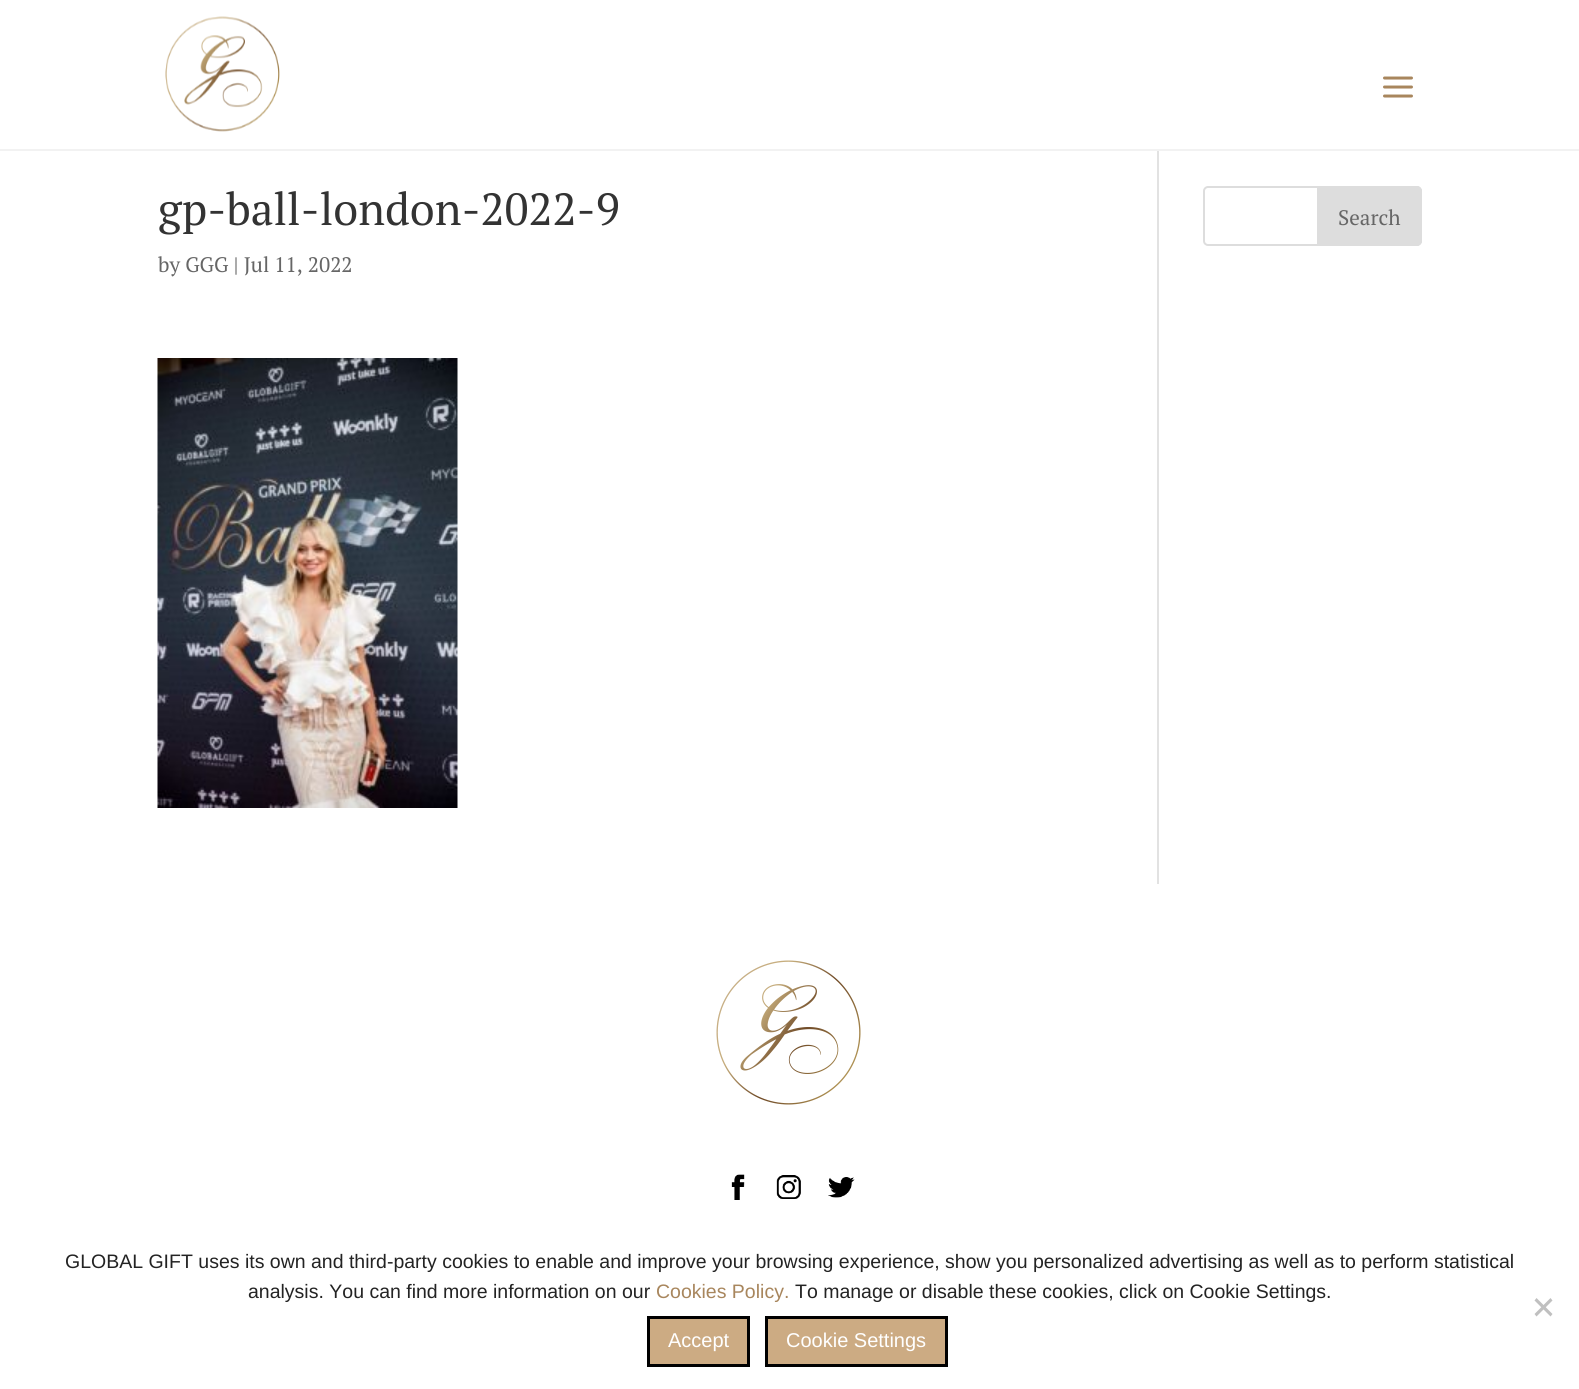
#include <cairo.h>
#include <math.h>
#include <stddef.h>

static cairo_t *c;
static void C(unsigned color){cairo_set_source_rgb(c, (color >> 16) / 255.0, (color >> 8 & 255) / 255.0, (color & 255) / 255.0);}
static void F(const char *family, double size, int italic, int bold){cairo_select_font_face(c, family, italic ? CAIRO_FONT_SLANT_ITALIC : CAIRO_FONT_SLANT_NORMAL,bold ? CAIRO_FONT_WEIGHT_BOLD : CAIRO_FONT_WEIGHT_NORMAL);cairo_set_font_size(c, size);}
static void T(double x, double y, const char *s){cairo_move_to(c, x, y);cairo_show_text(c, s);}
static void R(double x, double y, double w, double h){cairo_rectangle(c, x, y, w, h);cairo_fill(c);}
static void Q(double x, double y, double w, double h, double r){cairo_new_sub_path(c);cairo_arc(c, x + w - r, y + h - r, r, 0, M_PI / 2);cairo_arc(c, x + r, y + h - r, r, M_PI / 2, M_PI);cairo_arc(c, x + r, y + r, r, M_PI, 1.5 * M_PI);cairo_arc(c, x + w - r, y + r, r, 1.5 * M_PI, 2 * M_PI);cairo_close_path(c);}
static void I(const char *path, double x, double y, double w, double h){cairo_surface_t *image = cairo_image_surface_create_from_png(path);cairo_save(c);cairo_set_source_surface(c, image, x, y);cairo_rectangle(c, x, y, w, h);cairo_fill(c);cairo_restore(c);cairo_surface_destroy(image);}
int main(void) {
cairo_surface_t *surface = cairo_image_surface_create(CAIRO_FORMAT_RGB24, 1579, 1389);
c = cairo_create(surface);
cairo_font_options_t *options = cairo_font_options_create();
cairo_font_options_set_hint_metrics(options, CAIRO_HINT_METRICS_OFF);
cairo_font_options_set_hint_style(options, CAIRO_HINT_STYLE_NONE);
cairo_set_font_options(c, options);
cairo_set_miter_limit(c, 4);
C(0xffffff);
cairo_paint(c);
C(0xf2f2f2);
R(0,149,1579,2);
I("1.png",165,16,115,116);
I("2.png",1383,76,30,22);
C(0xe2e2e2);
R(1157,151,2,733);
F("PT Serif",45,0,0);
C(0x333333);
T(158,225,"gp-ball-london-2022-9");
F("PT Serif",21,0,0);
C(0x666666);
T(158,272,"by GGG | Jul 11, 2022");
I("3.png",157,358,301,450);
Q(1204,187,217,58,4);
C(0xdddddd);
cairo_stroke(c);
cairo_new_path(c);
cairo_move_to(c,1318,187);
cairo_line_to(c,1417,187);
cairo_curve_to(c,1419,187,1421,189,1421,191);
cairo_line_to(c,1421,241);
cairo_curve_to(c,1421,243,1419,245,1417,245);
cairo_line_to(c,1318,245);
cairo_close_path(c);
cairo_fill_preserve(c);
cairo_stroke(c);
C(0x666666);
T(1338,225,"Search");
I("4.png",716,960,145,145);
I("5.png",731,1174,14,26);
I("6.png",776,1175,25,24);
I("7.png",828,1177,27,21);
F("Liberation Sans",19.5,0,0);
C(0x232323);
T(65,1268,"GLOBAL GIFT uses its own and third-party cookies to enable and improve your browsing experience, show you personalized advertising as well as to perform statistical");
T(248,1298,"analysis. You can find more information on our");
C(0xa8865d);
T(656,1298,"Cookies Policy.");
C(0x232323);
T(795,1298,"To manage or disable these cookies, click on Cookie Settings.");
C(0xc0c0c0);
cairo_new_path(c);
cairo_move_to(c,1550.5,1298);
cairo_line_to(c,1552.5,1300.5);
cairo_line_to(c,1536.5,1316.5);
cairo_line_to(c,1534.5,1314);
cairo_close_path(c);
cairo_fill(c);
cairo_new_path(c);
cairo_move_to(c,1534.5,1300.5);
cairo_line_to(c,1536.5,1298);
cairo_line_to(c,1552.5,1314);
cairo_line_to(c,1550.5,1316.5);
cairo_close_path(c);
cairo_fill(c);
C(0xccab83);
cairo_rectangle(c,648.5,1317.5,100,48);
cairo_fill_preserve(c);
C(0x000000);
cairo_set_line_width(c,3);
cairo_stroke(c);
F("Liberation Sans",20,0,0);
C(0xffffff);
T(668,1347,"Accept");
C(0xccab83);
cairo_rectangle(c,766.5,1317.5,180,48);
cairo_fill_preserve(c);
C(0x000000);
cairo_stroke(c);
C(0xffffff);
T(786,1347,"Cookie Settings");
cairo_surface_write_to_png(surface, "o.png");
cairo_font_options_destroy(options);
cairo_destroy(c);
cairo_surface_destroy(surface);
return 0;
}
